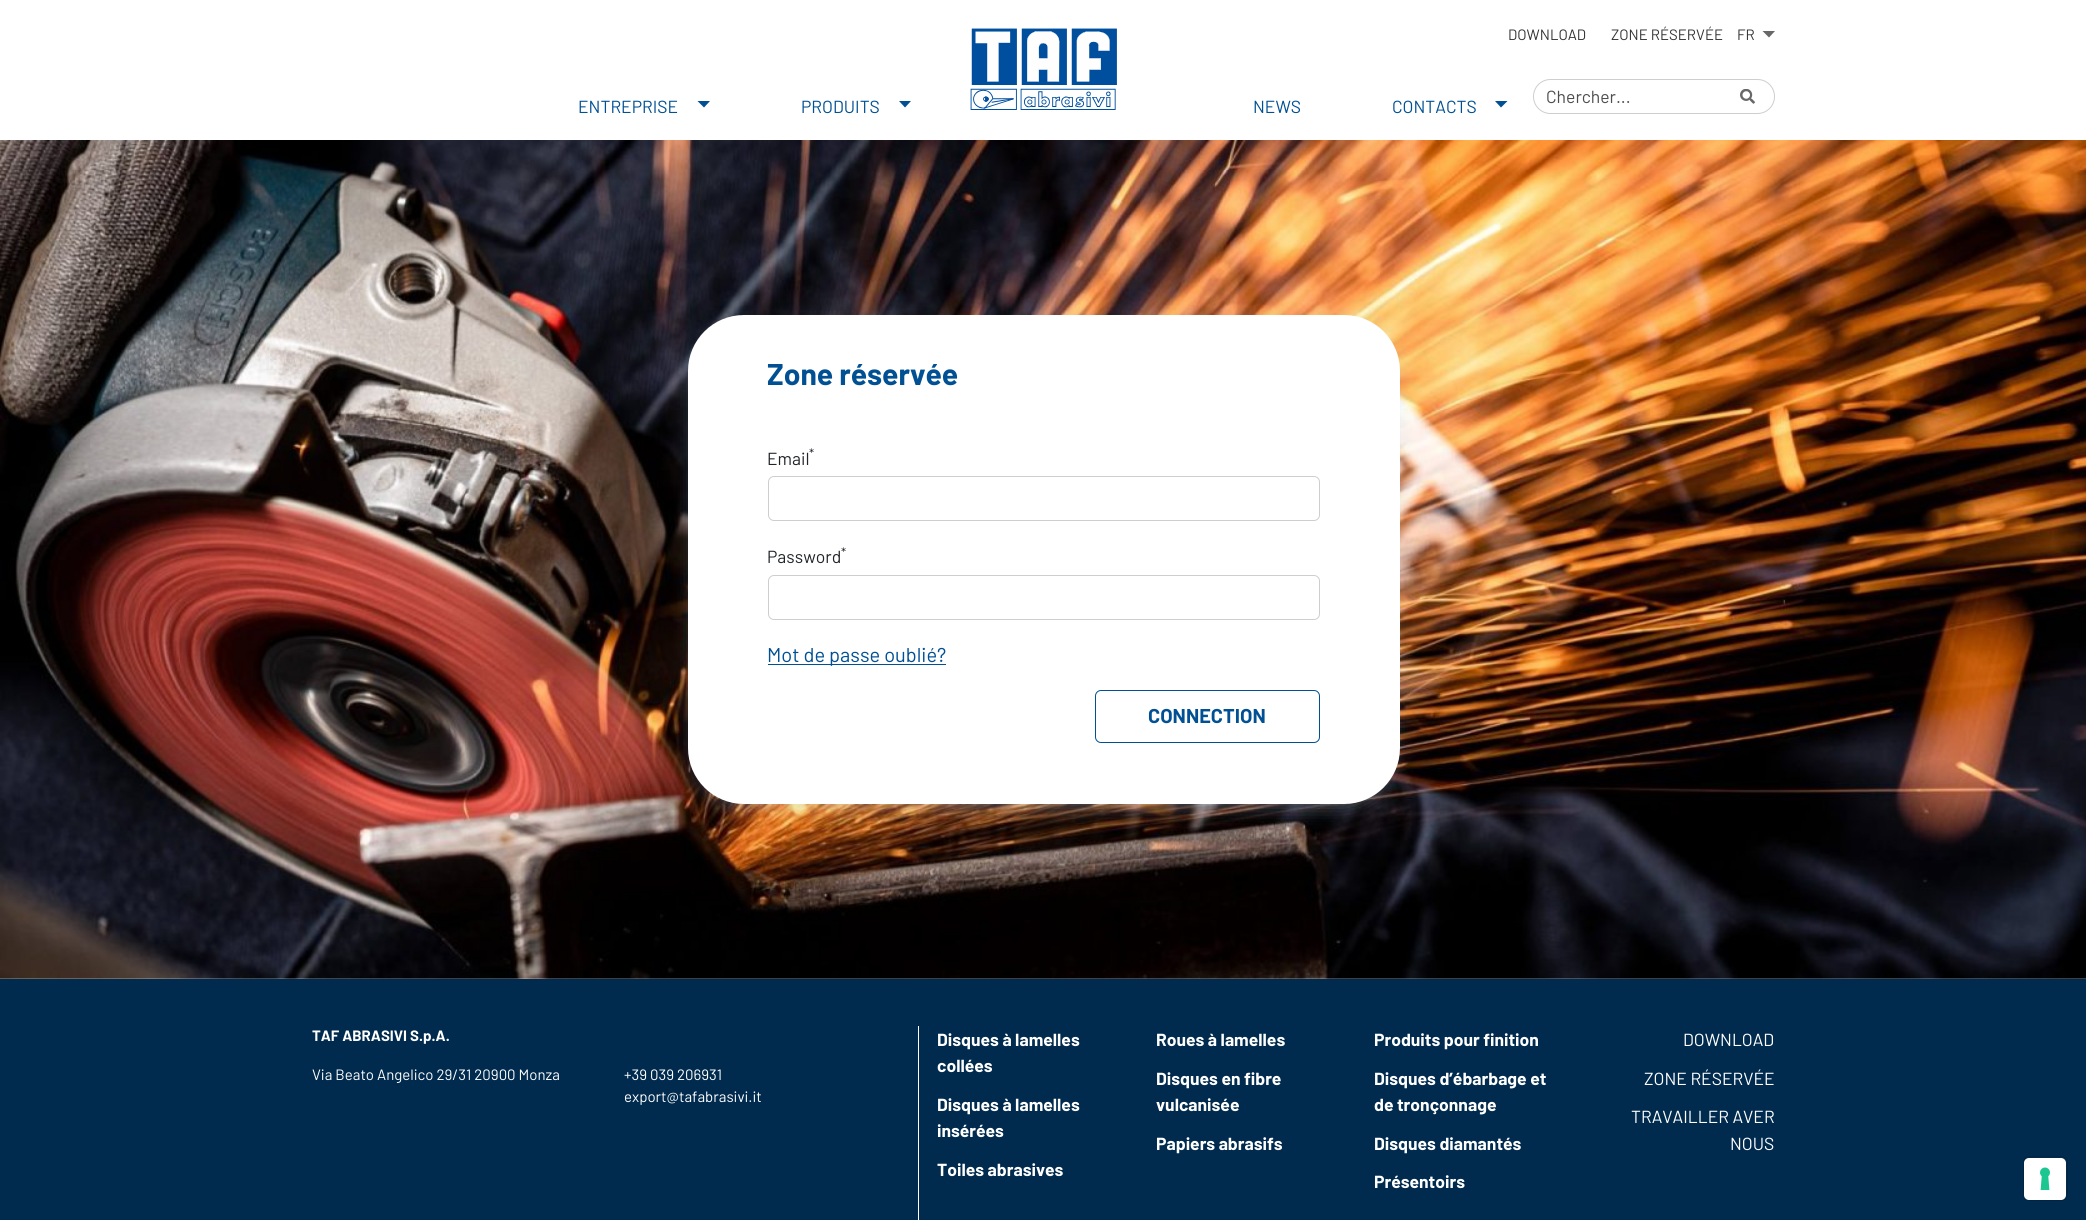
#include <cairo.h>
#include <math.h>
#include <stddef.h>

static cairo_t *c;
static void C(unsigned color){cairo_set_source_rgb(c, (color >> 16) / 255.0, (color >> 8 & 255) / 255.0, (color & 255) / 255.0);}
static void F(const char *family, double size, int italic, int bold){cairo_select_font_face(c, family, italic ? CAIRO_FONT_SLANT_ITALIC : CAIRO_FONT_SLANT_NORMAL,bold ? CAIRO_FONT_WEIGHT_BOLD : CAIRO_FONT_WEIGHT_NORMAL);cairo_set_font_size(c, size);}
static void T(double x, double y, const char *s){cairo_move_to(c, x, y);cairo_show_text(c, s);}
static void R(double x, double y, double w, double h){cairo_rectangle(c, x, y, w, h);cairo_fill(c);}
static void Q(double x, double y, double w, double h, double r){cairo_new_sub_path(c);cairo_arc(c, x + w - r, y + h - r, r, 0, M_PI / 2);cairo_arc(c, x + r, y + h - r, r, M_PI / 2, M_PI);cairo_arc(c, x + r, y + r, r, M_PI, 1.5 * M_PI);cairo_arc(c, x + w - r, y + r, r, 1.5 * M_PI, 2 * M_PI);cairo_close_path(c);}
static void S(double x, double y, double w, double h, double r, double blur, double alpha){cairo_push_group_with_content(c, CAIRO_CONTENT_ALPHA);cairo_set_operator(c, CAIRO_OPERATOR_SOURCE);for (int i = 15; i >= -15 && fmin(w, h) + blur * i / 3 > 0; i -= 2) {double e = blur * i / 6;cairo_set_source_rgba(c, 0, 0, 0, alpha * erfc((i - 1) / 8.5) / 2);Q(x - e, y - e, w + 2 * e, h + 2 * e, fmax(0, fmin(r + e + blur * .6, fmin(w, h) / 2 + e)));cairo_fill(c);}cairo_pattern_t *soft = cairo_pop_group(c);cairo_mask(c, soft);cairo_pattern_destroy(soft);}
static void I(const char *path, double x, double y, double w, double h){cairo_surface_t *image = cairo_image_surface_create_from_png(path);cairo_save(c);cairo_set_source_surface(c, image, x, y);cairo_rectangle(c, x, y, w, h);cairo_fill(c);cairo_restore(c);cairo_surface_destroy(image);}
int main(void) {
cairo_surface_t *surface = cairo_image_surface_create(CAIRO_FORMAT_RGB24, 2086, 1220);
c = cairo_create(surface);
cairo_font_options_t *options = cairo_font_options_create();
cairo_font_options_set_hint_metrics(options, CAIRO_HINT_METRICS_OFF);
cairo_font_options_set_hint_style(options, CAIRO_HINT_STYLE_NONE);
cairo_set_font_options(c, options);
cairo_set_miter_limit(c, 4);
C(0xffffff);
cairo_paint(c);
F("Barlow",15,0,0);
C(0x333333);
T(1508,40,"DOWNLOAD");
T(1611,40,"ZONE RÉSERVÉE");
T(1737,40,"FR");
C(0x686868);
cairo_new_path(c);
cairo_move_to(c,1762.5,31);
cairo_line_to(c,1775,31);
cairo_line_to(c,1769,37.5);
cairo_close_path(c);
cairo_fill(c);
Q(1533.5,79.5,241,34,17);
C(0xcecece);
cairo_set_line_width(c,1);
cairo_stroke(c);
F("Barlow",17.5,0,0);
C(0x4d4d4d);
T(1546,103,"Chercher...");
I("1.png",1740,89,15,15);
I("2.png",970,28,147,82);
C(0x005093);
T(578,113,"ENTREPRISE");
cairo_new_path(c);
cairo_move_to(c,697.5,101);
cairo_line_to(c,710,101);
cairo_line_to(c,704,107.5);
cairo_close_path(c);
cairo_fill(c);
T(801,113,"PRODUITS");
cairo_new_path(c);
cairo_move_to(c,899,101);
cairo_line_to(c,911,101);
cairo_line_to(c,905,107.5);
cairo_close_path(c);
cairo_fill(c);
T(1253,113,"NEWS");
T(1392,113,"CONTACTS");
cairo_new_path(c);
cairo_move_to(c,1495,101);
cairo_line_to(c,1507.5,101);
cairo_line_to(c,1501,107.5);
cairo_close_path(c);
cairo_fill(c);
I("3.png",0,140,2086,839);
C(0x6893ae);
S(688,318,712,488,56,9,.08);
C(0xc7e6ff);
S(698,335,692,469,46,10,.4);
C(0xffffff);
Q(688,315,712,489,56);
cairo_fill(c);
F("Barlow",30,0,1);
C(0x005093);
T(767,385,"Zone réservée");
F("Barlow",13,0,0);
C(0x212529);
T(809,458,"*");
F("Barlow",17.5,0,0);
T(767,465,"Email");
Q(768.5,476.5,551,44,5.5);
C(0xcecece);
cairo_stroke(c);
F("Barlow",13,0,0);
C(0x212529);
T(841,557,"*");
F("Barlow",17.5,0,0);
T(767,563,"Password");
Q(768.5,575.5,551,44,5.5);
C(0xcecece);
cairo_stroke(c);
C(0x005093);
R(768,664,178,1);
F("Barlow",20,0,0);
T(767,662,"Mot de passe oublié?");
Q(1095.5,690.5,224,52,5.5);
cairo_stroke(c);
F("Barlow",20,0,1);
T(1148,723,"CONNECTION");
C(0x002b4e);
R(0,979,2086,241);
C(0xffffff);
R(918,1026,1,194);
F("Barlow",15,0,1);
T(312,1041,"TAF ABRASIVI S.p.A.");
F("Barlow",15,0,0);
T(312,1080,"Via Beato Angelico 29/31 20900 Monza");
T(624,1080,"+39 039 206931");
T(624,1102,"export@tafabrasivi.it");
F("Barlow",17.5,0,1);
T(937,1046,"Disques à lamelles");
T(937,1072,"collées");
T(937,1111,"Disques à lamelles");
T(937,1137,"insérées");
T(937,1176,"Toiles abrasives");
T(1156,1046,"Roues à lamelles");
T(1156,1085,"Disques en fibre");
T(1156,1111,"vulcanisée");
T(1156,1150,"Papiers abrasifs");
T(1374,1046,"Produits pour finition");
T(1374,1085,"Disques d’ébarbage et");
T(1374,1111,"de tronçonnage");
T(1374,1150,"Disques diamantés");
T(1374,1188,"Présentoirs");
F("Barlow",17.5,0,0);
T(1683,1046,"DOWNLOAD");
T(1644,1085,"ZONE RÉSERVÉE");
T(1631,1123,"TRAVAILLER AVER");
T(1730,1150,"NOUS");
Q(2023.5,1156.5,44,44,5.5);
C(0x002542);
cairo_stroke(c);
C(0xffffff);
Q(2024,1158,42,42,5);
cairo_fill(c);
I("4.png",2040,1167,10,23);
cairo_surface_write_to_png(surface, "o.png");
cairo_font_options_destroy(options);
cairo_destroy(c);
cairo_surface_destroy(surface);
return 0;
}
